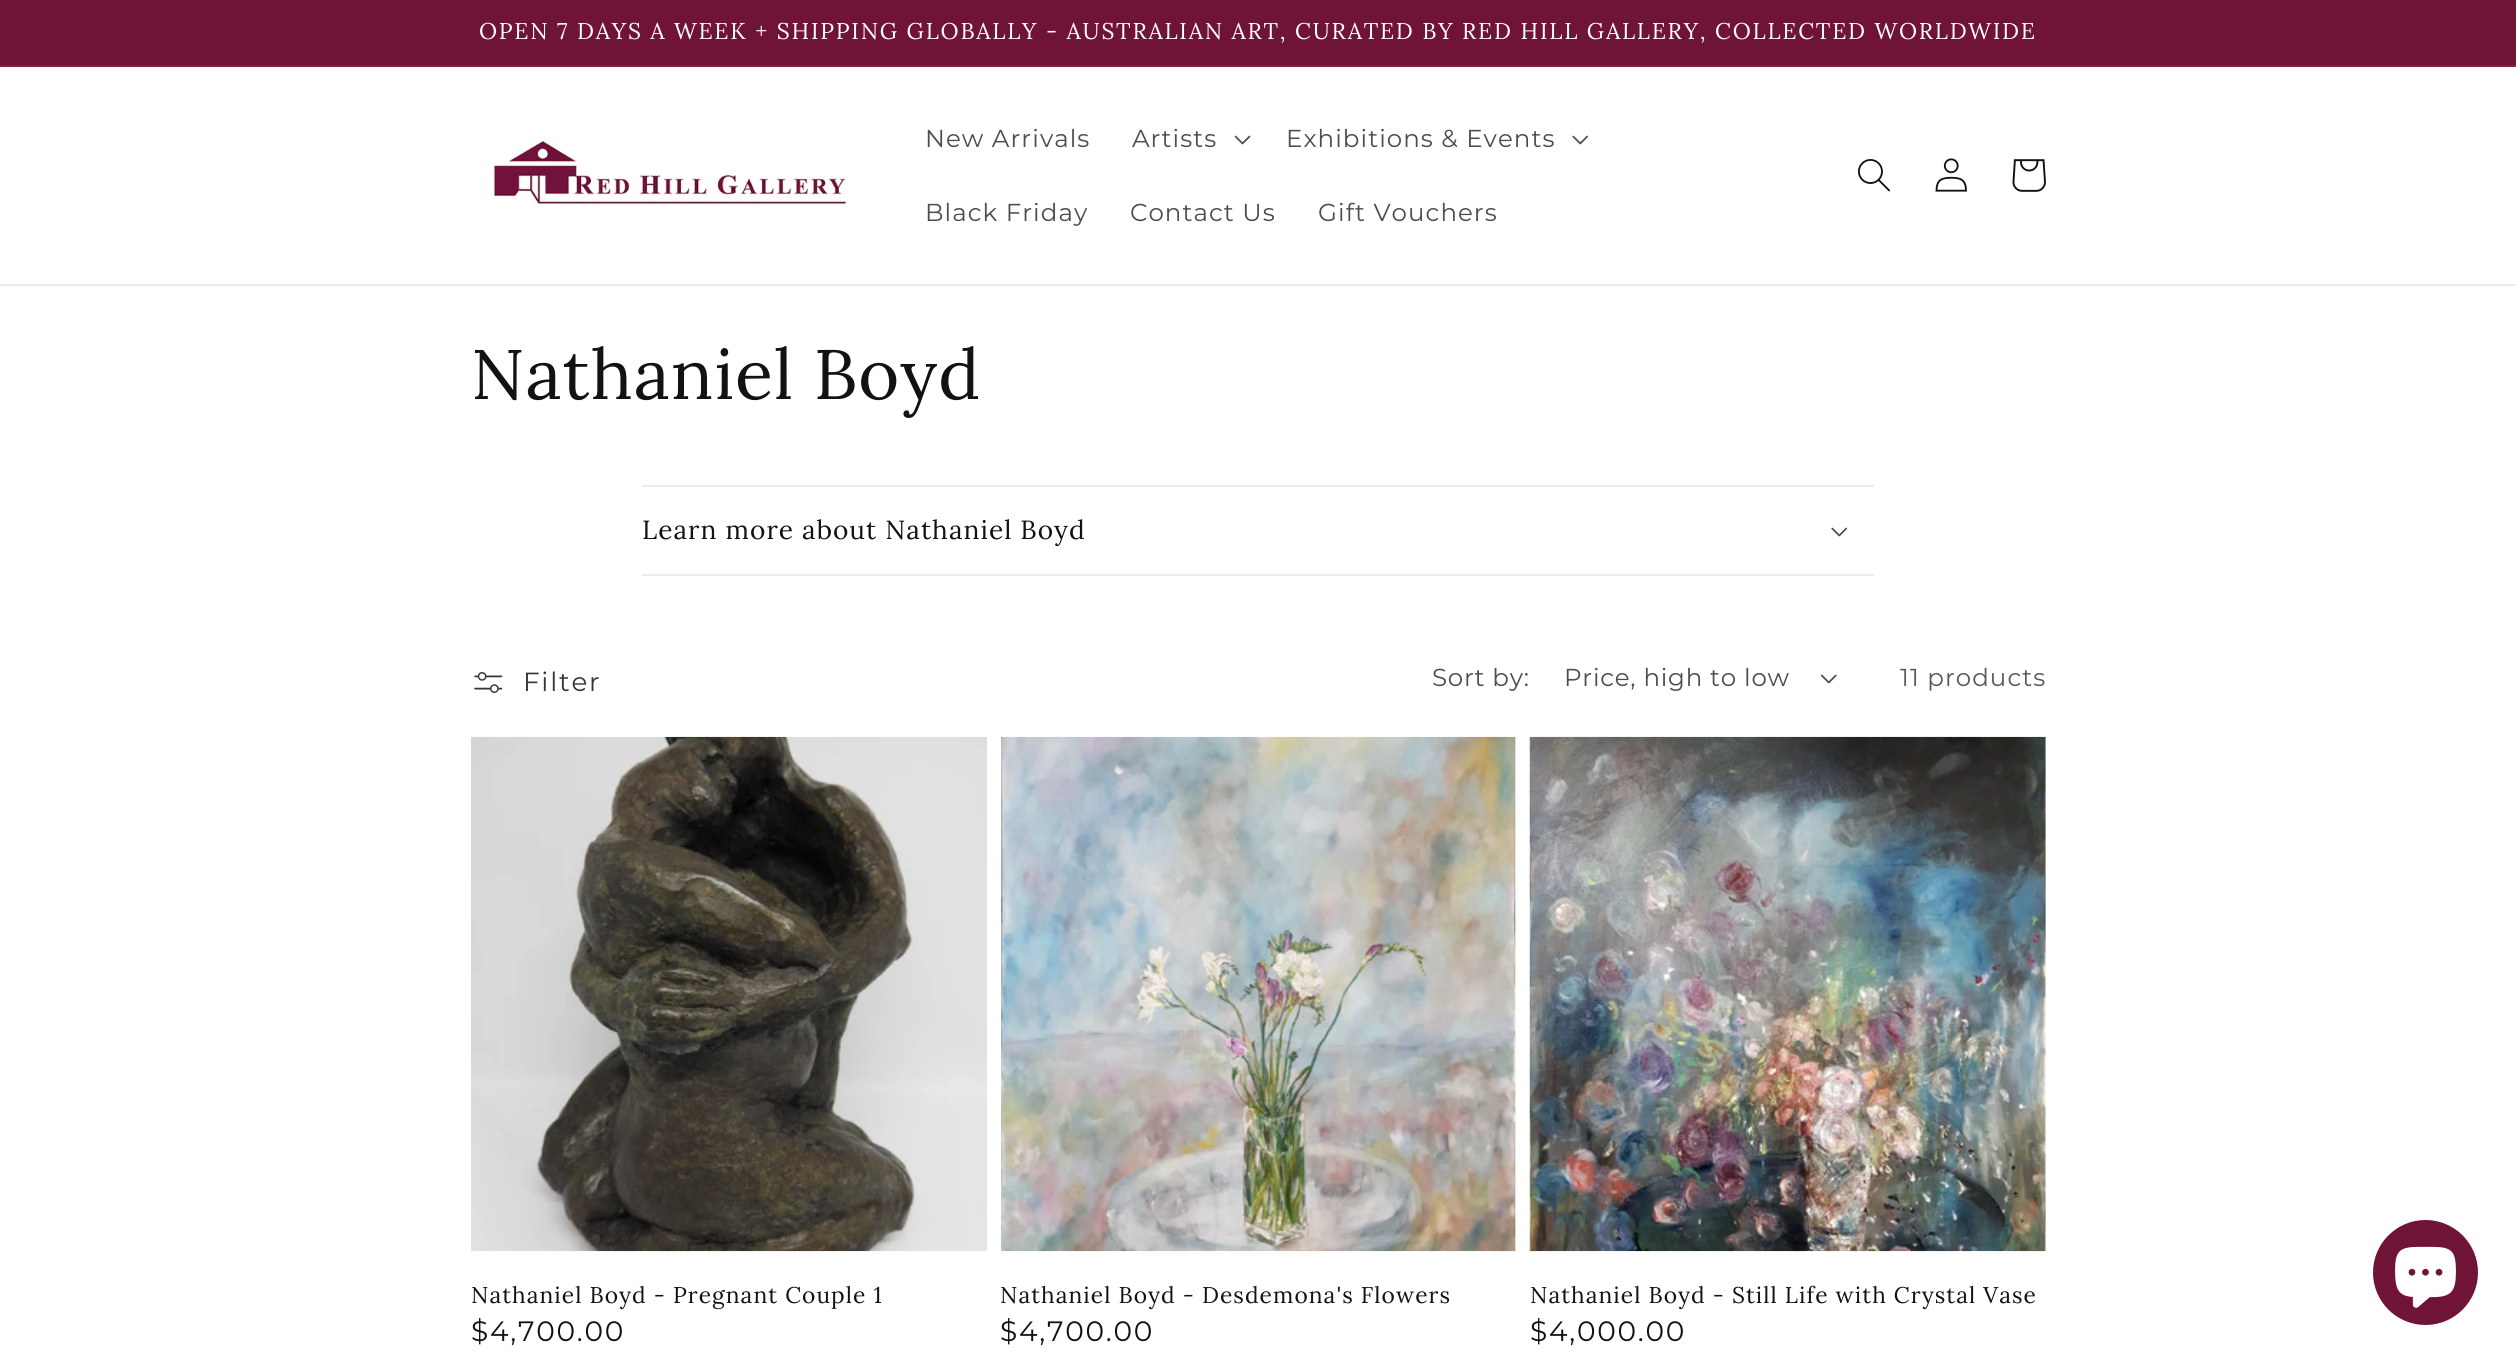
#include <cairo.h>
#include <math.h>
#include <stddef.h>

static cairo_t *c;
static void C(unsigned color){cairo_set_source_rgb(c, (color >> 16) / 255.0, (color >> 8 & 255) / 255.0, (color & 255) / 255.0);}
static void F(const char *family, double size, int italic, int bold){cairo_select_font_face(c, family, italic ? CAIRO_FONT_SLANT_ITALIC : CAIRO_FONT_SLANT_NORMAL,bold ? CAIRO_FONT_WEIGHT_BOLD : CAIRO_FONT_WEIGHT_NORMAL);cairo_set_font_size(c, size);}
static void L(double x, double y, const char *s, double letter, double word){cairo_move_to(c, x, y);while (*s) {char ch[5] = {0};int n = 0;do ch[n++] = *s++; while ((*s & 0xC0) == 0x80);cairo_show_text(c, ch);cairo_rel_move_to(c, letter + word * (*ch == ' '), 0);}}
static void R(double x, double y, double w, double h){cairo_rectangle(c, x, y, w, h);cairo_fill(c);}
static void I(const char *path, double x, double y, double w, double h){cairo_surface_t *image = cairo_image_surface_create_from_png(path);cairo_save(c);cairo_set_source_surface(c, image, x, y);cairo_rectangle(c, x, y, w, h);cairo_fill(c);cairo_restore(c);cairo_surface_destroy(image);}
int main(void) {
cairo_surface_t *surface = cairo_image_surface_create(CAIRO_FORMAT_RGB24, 2516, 1361);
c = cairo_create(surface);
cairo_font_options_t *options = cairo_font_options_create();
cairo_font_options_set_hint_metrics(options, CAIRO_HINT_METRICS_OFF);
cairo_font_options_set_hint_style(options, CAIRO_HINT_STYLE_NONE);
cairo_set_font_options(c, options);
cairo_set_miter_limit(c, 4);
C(0xffffff);
cairo_paint(c);
C(0x6f1337);
R(0,0,2516,65);
C(0x7b2647);
R(0,65,2516,2);
F("Lora",22.75,0,0);
C(0xffffff);
L(479,39,"OPEN 7 DAYS A WEEK + SHIPPING GLOBALLY - AUSTRALIAN ART, CURATED BY RED HILL GALLERY, COLLECTED WORLDWIDE",1.75,0);
C(0xececec);
R(0,284,2516,2);
I("1.png",489,138,358,68);
F("Montserrat",24.5,0,0);
C(0x4d4d4d);
L(925,147,"New Arrivals",1.05,0);
L(1132,147,"Artists",1.05,0);
I("2.png",1234,135,17,10);
L(1286,147,"Exhibitions & Events",1.05,0);
I("3.png",1572,135,17,10);
L(925,221,"Black Friday",1.05,0);
L(1130,221,"Contact Us",1.05,0);
L(1318,221,"Gift Vouchers",1.05,0);
I("4.png",1858,159,32,33);
I("5.png",1935,158,32,34);
I("6.png",2012,159,34,33);
F("Lora",70,0,0);
C(0x121212);
L(471,399,"Nathaniel Boyd",1.05,0);
C(0xececec);
R(642,485,1232,2);
R(642,574,1232,2);
F("Lora",26.25,0,0);
C(0x121212);
L(642,539,"Learn more about Nathaniel Boyd",1.05,0);
I("3.png",1831,527,17,10);
I("7.png",474,672,29,21);
F("Montserrat",26.25,0,0);
C(0x363636);
L(523,691,"Filter",1.75,0);
F("Montserrat",24.5,0,0);
C(0x4d4d4d);
L(1432,686,"Sort by:",.75,0);
L(1564,686,"Price, high to low",.75,0);
I("8.png",1820,674,17,10);
C(0x595959);
L(1900,686,"11 products",1.05,0);
I("9.png",471,736,516,516);
F("Lora",22.75,0,0);
C(0x121212);
L(471,1303,"Nathaniel Boyd - Pregnant Couple 1",1.05,0);
F("Montserrat",28,0,0);
L(471,1341,"$4,700.00",1.75,0);
C(0xf3f3f3);
R(1515,737,1,514);
I("10.png",1001,736,515,516);
F("Lora",22.75,0,0);
C(0x121212);
L(1000,1303,"Nathaniel Boyd - Desdemona's Flowers",1.05,0);
F("Montserrat",28,0,0);
L(1000,1341,"$4,700.00",1.75,0);
C(0xf3f3f3);
R(2045,737,1,514);
I("11.png",1529,736,517,516);
F("Lora",22.75,0,0);
C(0x121212);
L(1530,1303,"Nathaniel Boyd - Still Life with Crystal Vase",1.05,0);
F("Montserrat",28,0,0);
L(1530,1341,"$4,000.00",1.75,0);
C(0x6f1337);
cairo_new_path(c);
cairo_arc(c,2425.5,1272.5,52.5,0,2 * M_PI);
cairo_fill(c);
I("12.png",2395,1246,61,62);
cairo_surface_write_to_png(surface, "o.png");
cairo_font_options_destroy(options);
cairo_destroy(c);
cairo_surface_destroy(surface);
return 0;
}
